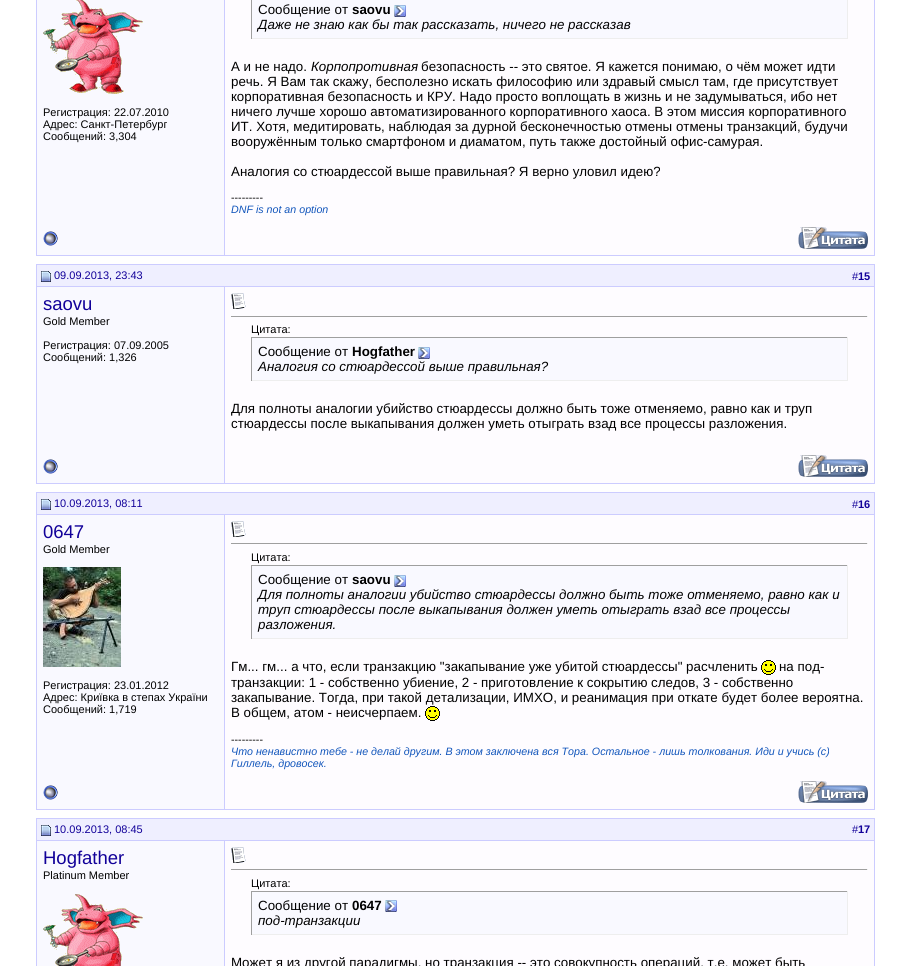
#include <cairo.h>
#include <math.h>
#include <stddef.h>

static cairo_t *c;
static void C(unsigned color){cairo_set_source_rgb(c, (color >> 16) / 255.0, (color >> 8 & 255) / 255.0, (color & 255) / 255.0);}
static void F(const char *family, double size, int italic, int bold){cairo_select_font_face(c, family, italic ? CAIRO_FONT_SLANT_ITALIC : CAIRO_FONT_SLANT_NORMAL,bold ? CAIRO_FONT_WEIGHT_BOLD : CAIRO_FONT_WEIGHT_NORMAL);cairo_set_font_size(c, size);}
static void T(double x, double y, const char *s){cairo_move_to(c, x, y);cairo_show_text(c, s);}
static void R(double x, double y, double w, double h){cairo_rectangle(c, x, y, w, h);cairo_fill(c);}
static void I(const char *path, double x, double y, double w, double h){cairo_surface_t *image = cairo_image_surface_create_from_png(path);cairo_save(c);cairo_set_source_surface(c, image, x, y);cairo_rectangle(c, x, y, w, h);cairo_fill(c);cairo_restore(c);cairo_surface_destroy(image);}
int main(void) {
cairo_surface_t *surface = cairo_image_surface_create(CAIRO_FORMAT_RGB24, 911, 966);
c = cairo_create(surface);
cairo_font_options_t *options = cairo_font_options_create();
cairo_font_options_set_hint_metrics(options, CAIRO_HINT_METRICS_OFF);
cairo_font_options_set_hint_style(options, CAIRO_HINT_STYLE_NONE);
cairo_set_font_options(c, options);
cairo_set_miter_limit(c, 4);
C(0xffffff);
cairo_paint(c);
C(0xf9f9ff);
R(37,0,187,255);
C(0xccccff);
R(224,0,1,256);
R(36,0,1,221);
I("1.png",43,0,100,94);
F("Liberation Sans",11,0,0);
C(0x000000);
T(43,116,"Регистрация: 22.07.2010");
T(43,128,"Адрес: Санкт-Петербург");
T(43,140,"Сообщений: 3,304");
C(0xfefcff);
R(225,0,649,255);
C(0xccccff);
R(874,0,1,256);
C(0xf9f9ff);
R(252,0,595,38);
C(0xeeeeee);
R(847,0,1,39);
R(251,38,597,1);
C(0x9f9f9f);
R(251,0,1,39);
F("Liberation Sans",13.35,0,0);
C(0x000000);
T(258,14,"Сообщение от");
F("Liberation Sans",13.35,0,1);
T(352,14,"saovu");
I("2.png",394,5,12,12);
F("Liberation Sans",13.35,1,0);
T(258,29,"Даже не знаю как бы так рассказать, ничего не рассказав");
F("Liberation Sans",13.35,0,0);
T(231,71,"А и не надо.");
F("Liberation Sans",13.35,1,0);
T(311,71,"Корпопротивная");
F("Liberation Sans",13.35,0,0);
T(421,71,"безопасность -- это святое. Я кажется понимаю, о чём может идти");
T(231,86,"речь. Я Вам так скажу, бесполезно искать философию или здравый смысл там, где присутствует");
T(231,101,"корпоративная безопасность и КРУ. Надо просто воплощать в жизнь и не задумываться, ибо нет");
T(231,116,"ничего лучше хорошо автоматизированного корпоративного хаоса. В этом миссия корпоративного");
T(231,131,"ИТ. Хотя, медитировать, наблюдая за дурной бесконечностью отмены отмены транзакций, будучи");
T(231,146,"вооружённым только смартфоном и диаматом, путь также достойный офис-самурая.");
T(231,176,"Аналогия со стюардессой выше правильная? Я верно уловил идею?");
F("Liberation Sans",10.67,0,0);
T(231,201,"---------");
F("Liberation Sans",10.67,1,0);
C(0x1155bb);
T(231,213,"DNF is not an option");
C(0xccccff);
R(36,255,839,1);
R(36,221,1,35);
I("3.png",43,231,15,15);
I("4.png",798,227,70,22);
C(0xefefff);
R(37,265,837,21);
C(0xccccff);
R(36,264,839,1);
R(36,286,189,1);
R(36,264,1,185);
I("5.png",41,271,10,11);
F("Liberation Sans",11,0,0);
C(0x110099);
T(54,279,"09.09.2013, 23:43");
C(0xccccff);
R(874,264,1,220);
R(225,286,650,1);
C(0x110099);
T(852,280,"#");
F("Liberation Sans",11,0,1);
T(858,280,"15");
C(0xf9f9ff);
R(37,287,187,196);
C(0xccccff);
R(224,287,1,197);
F("Liberation Sans",18.5,0,0);
C(0x110099);
T(43,310,"saovu");
F("Liberation Sans",11,0,0);
C(0x000000);
T(43,325,"Gold Member");
T(43,349,"Регистрация: 07.09.2005");
T(43,361,"Сообщений: 1,326");
C(0xfefcff);
R(225,287,649,196);
I("6.png",231,293,15,16);
C(0x9f9f9f);
R(231,316,637,1);
C(0xeeeeee);
R(867,316,1,1);
C(0x000000);
T(251,333,"Цитата:");
C(0xf9f9ff);
R(252,338,595,42);
C(0x9f9f9f);
R(251,337,597,1);
C(0xeeeeee);
R(847,337,1,44);
R(251,380,597,1);
C(0x9f9f9f);
R(251,337,1,44);
F("Liberation Sans",13.35,0,0);
C(0x000000);
T(258,356,"Сообщение от");
F("Liberation Sans",13.35,0,1);
T(352,356,"Hogfather");
I("2.png",418,347,12,12);
F("Liberation Sans",13.35,1,0);
T(258,371,"Аналогия со стюардессой выше правильная?");
F("Liberation Sans",13.35,0,0);
T(231,413,"Для полноты аналогии убийство стюардессы должно быть тоже отменяемо, равно как и труп");
T(231,428,"стюардессы после выкапывания должен уметь отыграть взад все процессы разложения.");
C(0xccccff);
R(36,483,839,1);
R(36,449,1,35);
I("3.png",43,459,15,15);
I("4.png",798,455,70,22);
C(0xefefff);
R(37,493,837,21);
C(0xccccff);
R(36,492,839,1);
R(36,514,189,1);
R(36,492,1,283);
I("5.png",41,499,10,11);
F("Liberation Sans",11,0,0);
C(0x110099);
T(54,507,"10.09.2013, 08:11");
C(0xccccff);
R(874,492,1,318);
R(225,514,650,1);
C(0x110099);
T(852,508,"#");
F("Liberation Sans",11,0,1);
T(858,508,"16");
C(0xf9f9ff);
R(37,515,187,294);
C(0xccccff);
R(224,515,1,295);
F("Liberation Sans",18.5,0,0);
C(0x110099);
T(43,538,"0647");
F("Liberation Sans",11,0,0);
C(0x000000);
T(43,553,"Gold Member");
I("7.png",43,567,78,100);
T(43,689,"Регистрация: 23.01.2012");
T(43,701,"Адрес: Криївка в степах України");
T(43,713,"Сообщений: 1,719");
C(0xfefcff);
R(225,515,649,294);
I("6.png",231,521,15,16);
C(0x9f9f9f);
R(231,543,637,1);
C(0xeeeeee);
R(867,543,1,1);
C(0x000000);
T(251,561,"Цитата:");
C(0xf9f9ff);
R(252,566,595,72);
C(0x9f9f9f);
R(251,565,597,1);
C(0xeeeeee);
R(847,565,1,74);
R(251,638,597,1);
C(0x9f9f9f);
R(251,565,1,74);
F("Liberation Sans",13.35,0,0);
C(0x000000);
T(258,584,"Сообщение от");
F("Liberation Sans",13.35,0,1);
T(352,584,"saovu");
I("2.png",394,575,12,12);
F("Liberation Sans",13.35,1,0);
T(258,599,"Для полноты аналогии убийство стюардессы должно быть тоже отменяемо, равно как и");
T(258,614,"труп стюардессы после выкапывания должен уметь отыграть взад все процессы");
T(258,629,"разложения.");
F("Liberation Sans",13.35,0,0);
T(231,671,"Гм... гм... а что, если транзакцию \"закапывание уже убитой стюардессы\" расчленить");
I("8.png",761,660,15,15);
T(779,671,"на под-");
T(231,687,"транзакции: 1 - собственно убиение, 2 - приготовление к сокрытию следов, 3 - собственно");
T(231,702,"закапывание. Тогда, при такой детализации, ИМХО, и реанимация при откате будет более вероятна.");
T(231,717,"В общем, атом - неисчерпаем.");
I("8.png",425,706,15,15);
F("Liberation Sans",10.67,0,0);
T(231,743,"---------");
F("Liberation Sans",10.67,1,0);
C(0x1155bb);
T(231,755,"Что ненавистно тебе - не делай другим. В этом заключена вся Тора. Остальное - лишь толкования. Иди и учись (с)");
T(231,767,"Гиллель, дровосек.");
C(0xccccff);
R(36,809,839,1);
R(36,775,1,35);
I("3.png",43,785,15,15);
I("4.png",798,781,70,22);
C(0xefefff);
R(37,819,837,21);
C(0xccccff);
R(36,818,839,1);
R(36,840,189,1);
R(36,818,1,148);
I("5.png",41,825,10,11);
F("Liberation Sans",11,0,0);
C(0x110099);
T(54,833,"10.09.2013, 08:45");
C(0xccccff);
R(874,818,1,148);
R(225,840,650,1);
C(0x110099);
T(852,833,"#");
F("Liberation Sans",11,0,1);
T(858,833,"17");
C(0xf9f9ff);
R(37,841,187,125);
C(0xccccff);
R(224,841,1,125);
F("Liberation Sans",18.5,0,0);
C(0x110099);
T(43,864,"Hogfather");
F("Liberation Sans",11,0,0);
C(0x000000);
T(43,879,"Platinum Member");
I("9.png",43,894,100,72);
C(0xfefcff);
R(225,841,649,125);
I("6.png",231,847,15,16);
C(0x9f9f9f);
R(231,869,637,1);
C(0xeeeeee);
R(867,869,1,1);
C(0x000000);
T(251,887,"Цитата:");
C(0xf9f9ff);
R(252,892,595,42);
C(0x9f9f9f);
R(251,891,597,1);
C(0xeeeeee);
R(847,891,1,44);
R(251,934,597,1);
C(0x9f9f9f);
R(251,891,1,44);
F("Liberation Sans",13.35,0,0);
C(0x000000);
T(258,910,"Сообщение от");
F("Liberation Sans",13.35,0,1);
T(352,910,"0647");
I("2.png",385,900,12,12);
F("Liberation Sans",13.35,1,0);
T(258,925,"под-транзакции");
F("Liberation Sans",13.35,0,0);
T(231,967,"Может я из другой парадигмы, но транзакция -- это совокупность операций, т.е. может быть");
cairo_surface_write_to_png(surface, "o.png");
cairo_font_options_destroy(options);
cairo_destroy(c);
cairo_surface_destroy(surface);
return 0;
}
